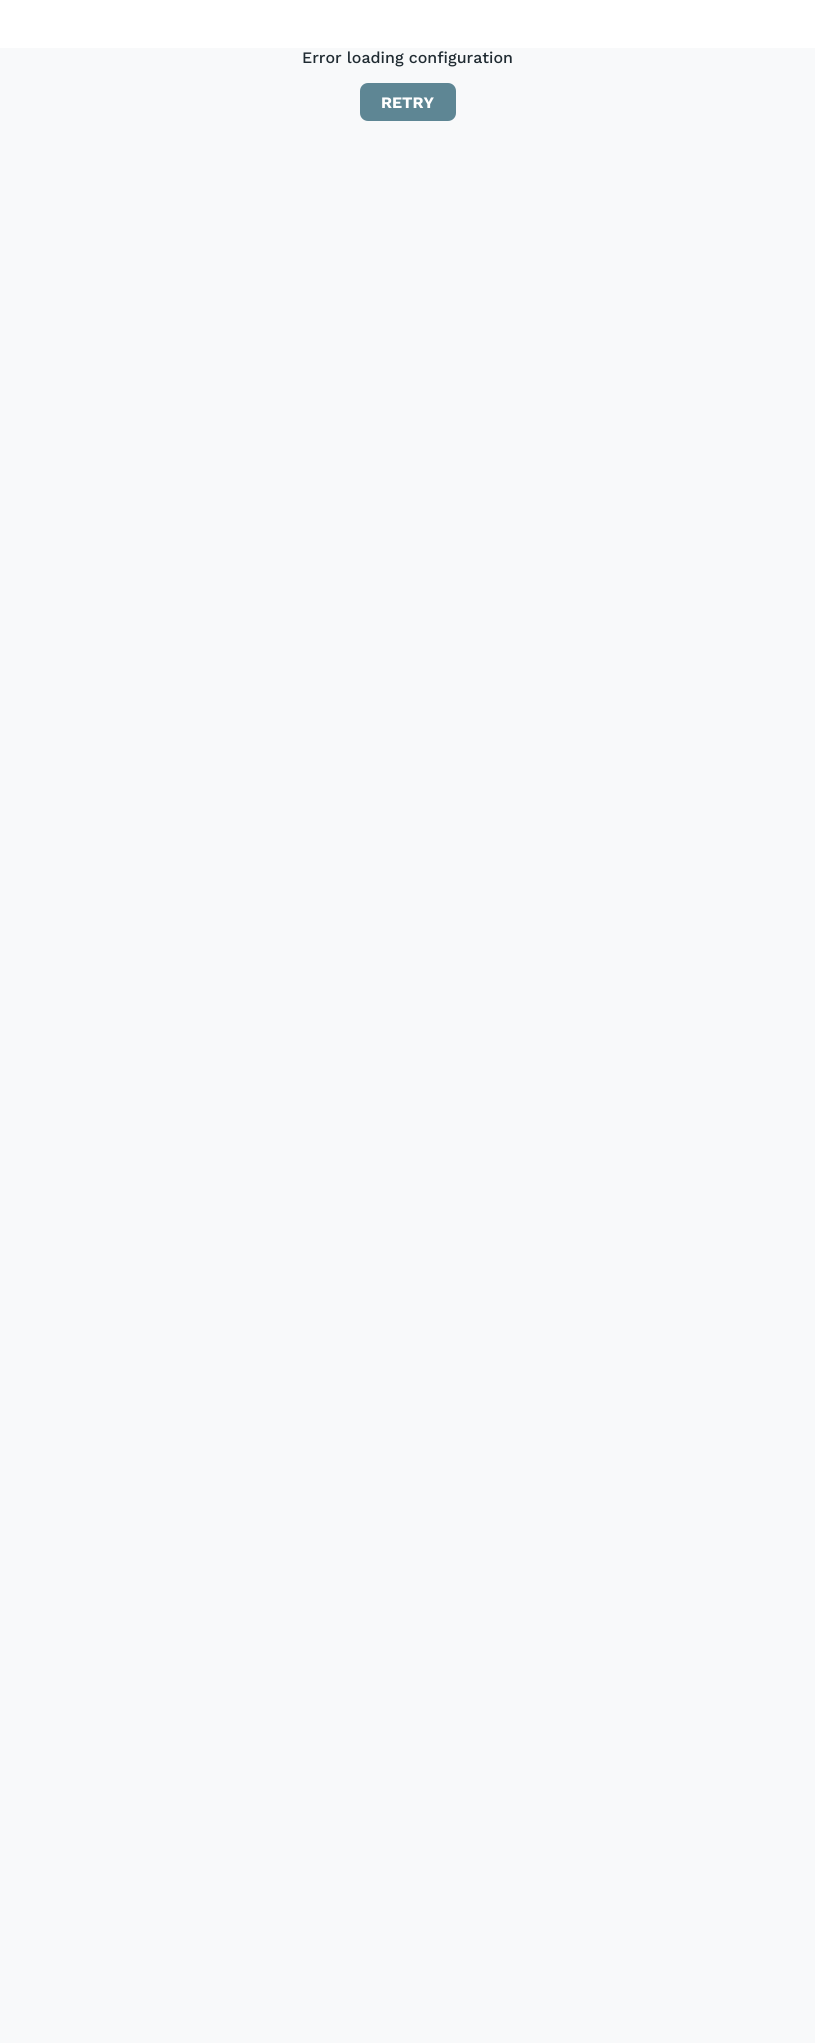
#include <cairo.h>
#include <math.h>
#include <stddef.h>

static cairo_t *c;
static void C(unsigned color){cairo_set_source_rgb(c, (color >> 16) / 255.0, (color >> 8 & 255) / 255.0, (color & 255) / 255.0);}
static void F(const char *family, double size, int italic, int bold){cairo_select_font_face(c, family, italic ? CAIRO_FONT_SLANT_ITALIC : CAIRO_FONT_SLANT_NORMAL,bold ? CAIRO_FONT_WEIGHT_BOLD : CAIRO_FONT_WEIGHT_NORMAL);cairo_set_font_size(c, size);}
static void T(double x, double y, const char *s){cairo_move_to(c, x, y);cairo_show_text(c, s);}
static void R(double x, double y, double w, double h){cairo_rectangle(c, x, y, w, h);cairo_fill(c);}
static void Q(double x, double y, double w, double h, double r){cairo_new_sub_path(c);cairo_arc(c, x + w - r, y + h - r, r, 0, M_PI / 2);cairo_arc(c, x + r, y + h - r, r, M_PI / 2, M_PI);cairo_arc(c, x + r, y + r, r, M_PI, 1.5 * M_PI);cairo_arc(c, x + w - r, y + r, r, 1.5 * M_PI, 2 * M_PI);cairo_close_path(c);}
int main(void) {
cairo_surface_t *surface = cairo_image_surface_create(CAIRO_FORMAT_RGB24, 815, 2043);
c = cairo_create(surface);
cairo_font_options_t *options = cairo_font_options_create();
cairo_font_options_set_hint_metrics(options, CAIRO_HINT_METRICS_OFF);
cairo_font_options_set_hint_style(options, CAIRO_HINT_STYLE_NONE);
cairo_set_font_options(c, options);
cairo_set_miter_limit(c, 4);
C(0xffffff);
cairo_paint(c);
C(0xf8f9fa);
R(0,48,815,1995);
F("Work Sans Medium",16,0,0);
C(0x202b32);
T(302,63,"Error loading configuration");
C(0x5e8694);
Q(360,83,96,38,8);
cairo_fill(c);
F("Work Sans",16,0,1);
C(0xffffff);
T(381,108,"RETRY");
cairo_surface_write_to_png(surface, "o.png");
cairo_font_options_destroy(options);
cairo_destroy(c);
cairo_surface_destroy(surface);
return 0;
}
